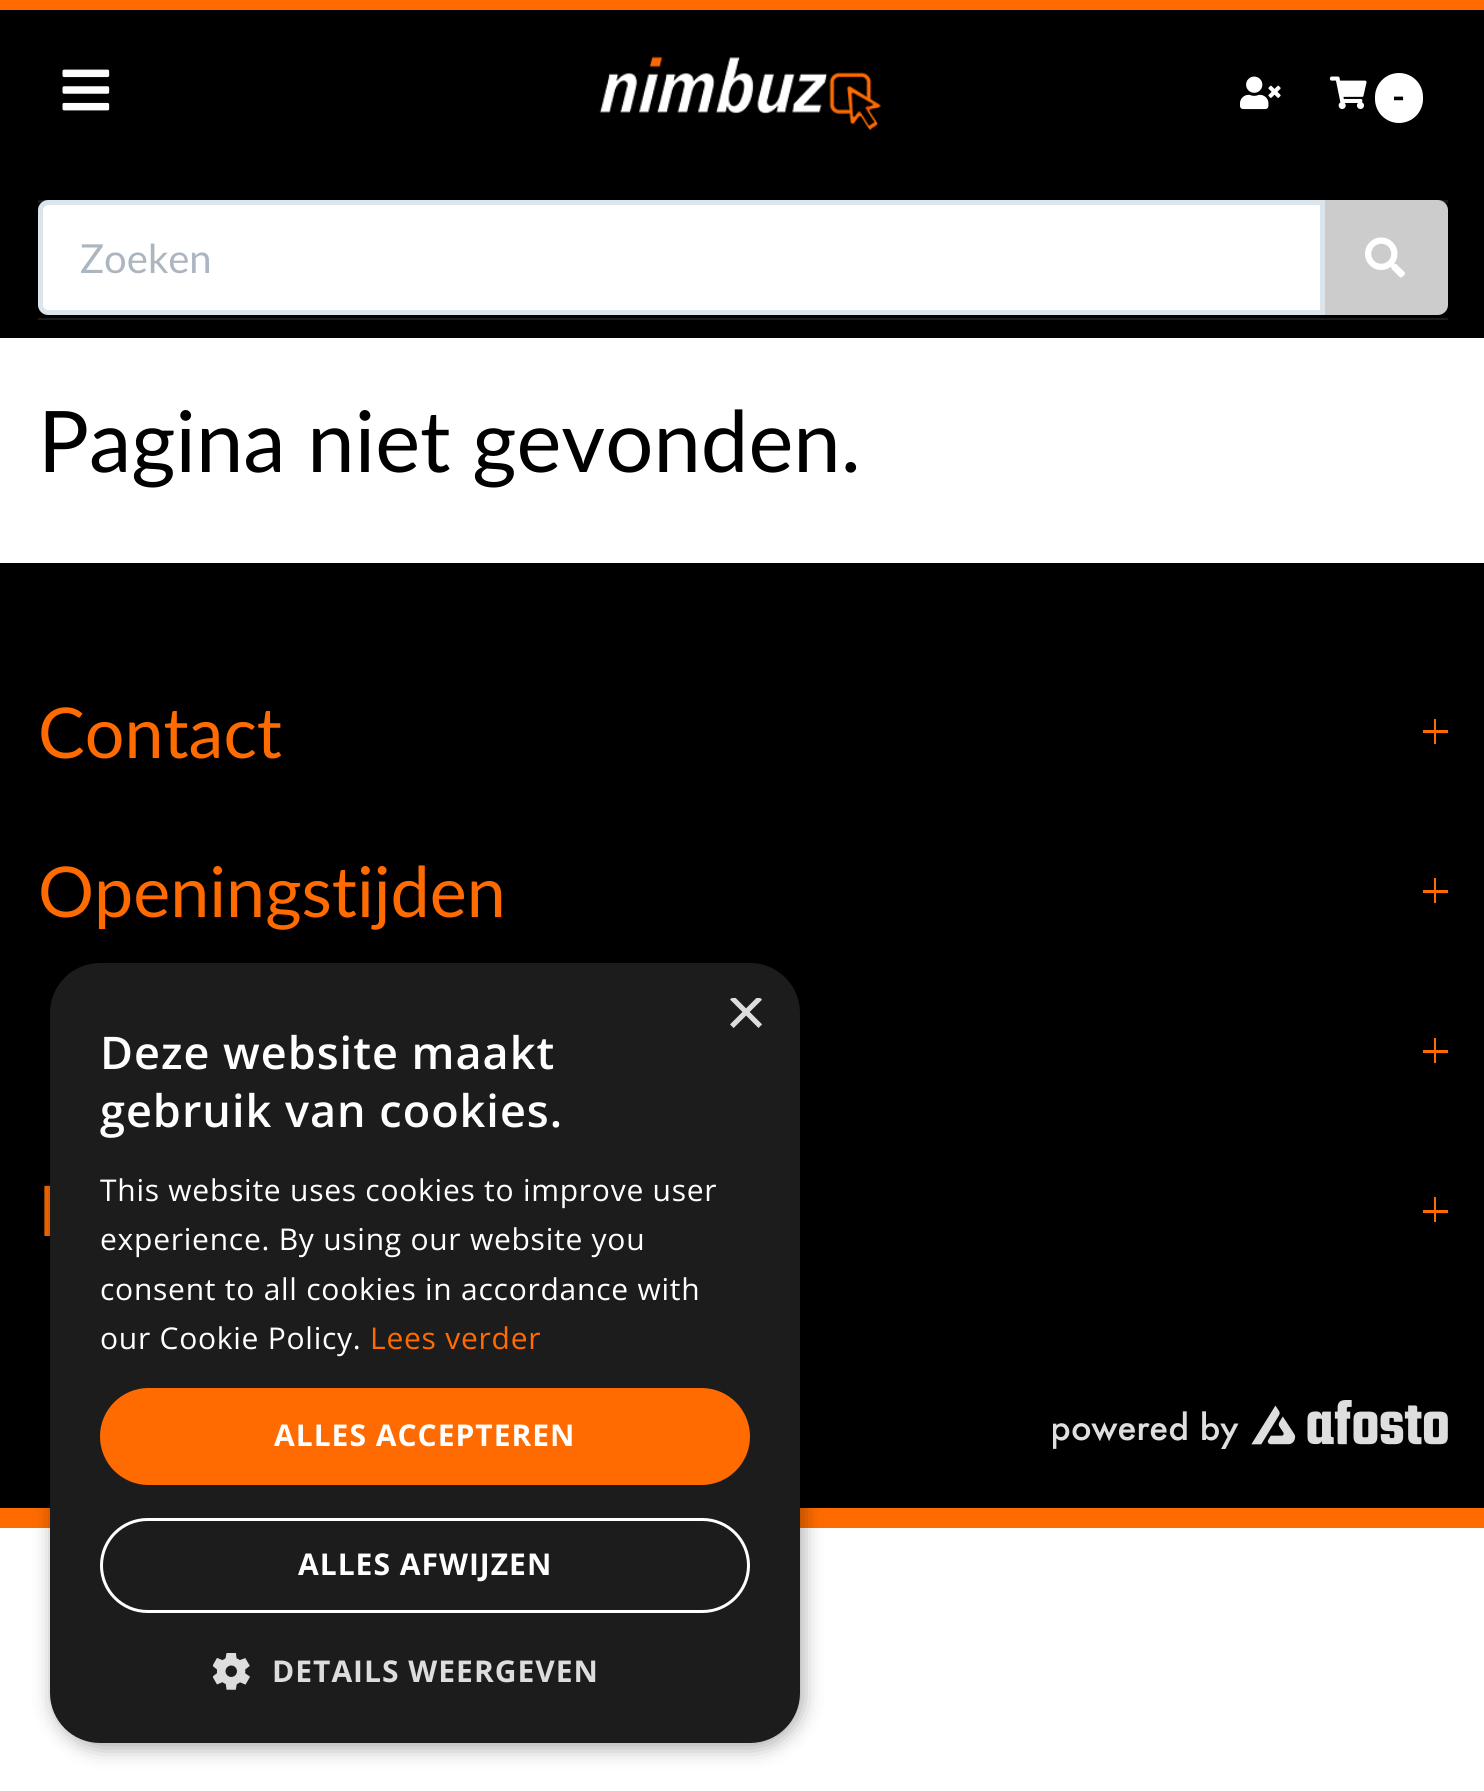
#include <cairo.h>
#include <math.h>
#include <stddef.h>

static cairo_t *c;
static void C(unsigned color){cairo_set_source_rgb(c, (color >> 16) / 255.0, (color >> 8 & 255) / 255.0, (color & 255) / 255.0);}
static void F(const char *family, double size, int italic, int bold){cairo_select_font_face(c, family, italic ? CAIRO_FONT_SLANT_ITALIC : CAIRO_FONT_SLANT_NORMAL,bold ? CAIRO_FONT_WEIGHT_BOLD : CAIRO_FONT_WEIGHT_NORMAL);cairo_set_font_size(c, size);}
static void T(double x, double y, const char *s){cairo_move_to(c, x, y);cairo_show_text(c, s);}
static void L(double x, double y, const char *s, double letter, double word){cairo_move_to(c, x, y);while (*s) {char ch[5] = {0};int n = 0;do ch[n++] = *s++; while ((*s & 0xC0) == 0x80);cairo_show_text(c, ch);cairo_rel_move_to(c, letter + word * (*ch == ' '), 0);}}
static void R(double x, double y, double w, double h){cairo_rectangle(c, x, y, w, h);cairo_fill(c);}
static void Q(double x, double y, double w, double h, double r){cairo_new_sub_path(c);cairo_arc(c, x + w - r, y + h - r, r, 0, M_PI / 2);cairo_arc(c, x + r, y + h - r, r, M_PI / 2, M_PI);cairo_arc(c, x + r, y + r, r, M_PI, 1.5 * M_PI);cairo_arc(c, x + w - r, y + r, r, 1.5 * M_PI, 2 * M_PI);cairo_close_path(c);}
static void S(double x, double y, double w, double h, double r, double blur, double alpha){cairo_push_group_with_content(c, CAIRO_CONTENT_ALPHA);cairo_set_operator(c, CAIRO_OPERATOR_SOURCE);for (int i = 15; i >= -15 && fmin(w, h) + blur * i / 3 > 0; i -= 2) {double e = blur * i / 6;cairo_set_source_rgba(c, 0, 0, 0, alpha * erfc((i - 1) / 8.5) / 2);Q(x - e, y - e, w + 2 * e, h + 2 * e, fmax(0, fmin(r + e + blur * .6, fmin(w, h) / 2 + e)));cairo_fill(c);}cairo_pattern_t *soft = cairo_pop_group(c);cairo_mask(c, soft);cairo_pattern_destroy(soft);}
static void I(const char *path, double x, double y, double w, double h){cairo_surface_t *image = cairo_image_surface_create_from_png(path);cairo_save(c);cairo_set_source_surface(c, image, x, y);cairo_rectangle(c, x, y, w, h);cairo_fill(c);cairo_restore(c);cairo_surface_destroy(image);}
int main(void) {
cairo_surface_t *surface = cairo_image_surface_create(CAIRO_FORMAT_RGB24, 1484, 1791);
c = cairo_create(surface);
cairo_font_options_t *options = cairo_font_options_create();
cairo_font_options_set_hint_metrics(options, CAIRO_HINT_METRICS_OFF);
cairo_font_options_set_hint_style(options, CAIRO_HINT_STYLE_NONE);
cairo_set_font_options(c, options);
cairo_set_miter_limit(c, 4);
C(0xffffff);
cairo_paint(c);
C(0xff6b00);
R(0,0,1484,10);
C(0x000000);
R(0,10,1484,328);
I("1.png",62,69,48,42);
I("2.png",599,56,282,74);
I("3.png",1240,76,41,34);
I("4.png",1330,76,37,33);
C(0xffffff);
Q(1375,73,48,50,24);
cairo_fill(c);
F("Lato",35,0,1);
C(0x000000);
T(1392,109,"-");
C(0x1a1a1a);
cairo_new_path(c);
cairo_move_to(c,38,318);
cairo_line_to(c,38,320);
cairo_line_to(c,1448,320);
cairo_line_to(c,1448,200);
cairo_line_to(c,1448,318);
cairo_close_path(c);
cairo_fill(c);
R(38,200,1410,3);
C(0xcccccc);
cairo_new_path(c);
cairo_move_to(c,1325.5,202.5);
cairo_line_to(c,1438,202.5);
cairo_curve_to(c,1442,202.5,1445.5,206,1445.5,210);
cairo_line_to(c,1445.5,305);
cairo_curve_to(c,1445.5,309,1442,312.5,1438,312.5);
cairo_line_to(c,1325.5,312.5);
cairo_close_path(c);
cairo_fill_preserve(c);
cairo_set_line_width(c,5);
cairo_stroke(c);
C(0xffffff);
cairo_new_path(c);
cairo_move_to(c,48,202.5);
cairo_line_to(c,1322.5,202.5);
cairo_line_to(c,1322.5,312.5);
cairo_line_to(c,48,312.5);
cairo_curve_to(c,44,312.5,40.5,309,40.5,305);
cairo_line_to(c,40.5,210);
cairo_curve_to(c,40.5,206,44,202.5,48,202.5);
cairo_close_path(c);
cairo_fill_preserve(c);
C(0xdce4ec);
cairo_stroke(c);
F("Lato",40,0,0);
C(0xacb6c0);
T(80,273,"Zoeken");
I("5.png",1365,237,40,41);
F("Lato",85,0,0);
C(0x000000);
T(38,472,"Pagina niet gevonden.");
R(0,563,1484,945);
C(0xff6b00);
R(0,1508,1484,20);
F("Lato",70,0,0);
T(38,758,"Contact");
R(1423,730,25,3);
R(1434,719,2,25);
T(38,917,"Openingstijden");
R(1423,890,25,3);
R(1434,878,2,25);
R(1423,1050,25,3);
R(1434,1038,2,25);
T(38,1236,"I");
R(1423,1210,25,3);
R(1434,1197,2,25);
I("6.png",1053,1400,395,49);
C(0x000000);
S(53,968,750,780,50,10,.35);
C(0x1c1c1c);
Q(50,963,750,780,50);
cairo_fill(c);
cairo_save(c);
cairo_rectangle(c,725,998,38,37);
cairo_clip(c);
F("Liberation Sans",72,0,0);
C(0xdddddd);
T(725,1036,"×");
cairo_restore(c);
F("Open Sans SemiBold",45,0,0);
C(0xffffff);
L(100,1069,"Deze website maakt",1,0);
L(100,1127,"gebruik van cookies.",1,0);
F("Open Sans",30,0,0);
L(100,1201,"This website uses cookies to improve user",.75,0);
L(100,1250,"experience. By using our website you",.75,0);
L(100,1300,"consent to all cookies in accordance with",.75,0);
L(100,1349,"our Cookie Policy.",.75,0);
C(0xff6b00);
L(370,1349,"Lees verder",.75,0);
Q(100,1388,650,97,48.5);
cairo_fill(c);
F("Open Sans",30,0,1);
C(0xffffff);
L(274,1446,"ALLES ACCEPTEREN",1,0);
Q(101.5,1519.5,647,92,46);
cairo_set_line_width(c,3);
cairo_stroke(c);
L(298,1575,"ALLES AFWIJZEN",1,0);
I("7.png",213,1653,37,37);
C(0xdddddd);
L(272,1682,"DETAILS WEERGEVEN",1,0);
cairo_surface_write_to_png(surface, "o.png");
cairo_font_options_destroy(options);
cairo_destroy(c);
cairo_surface_destroy(surface);
return 0;
}
